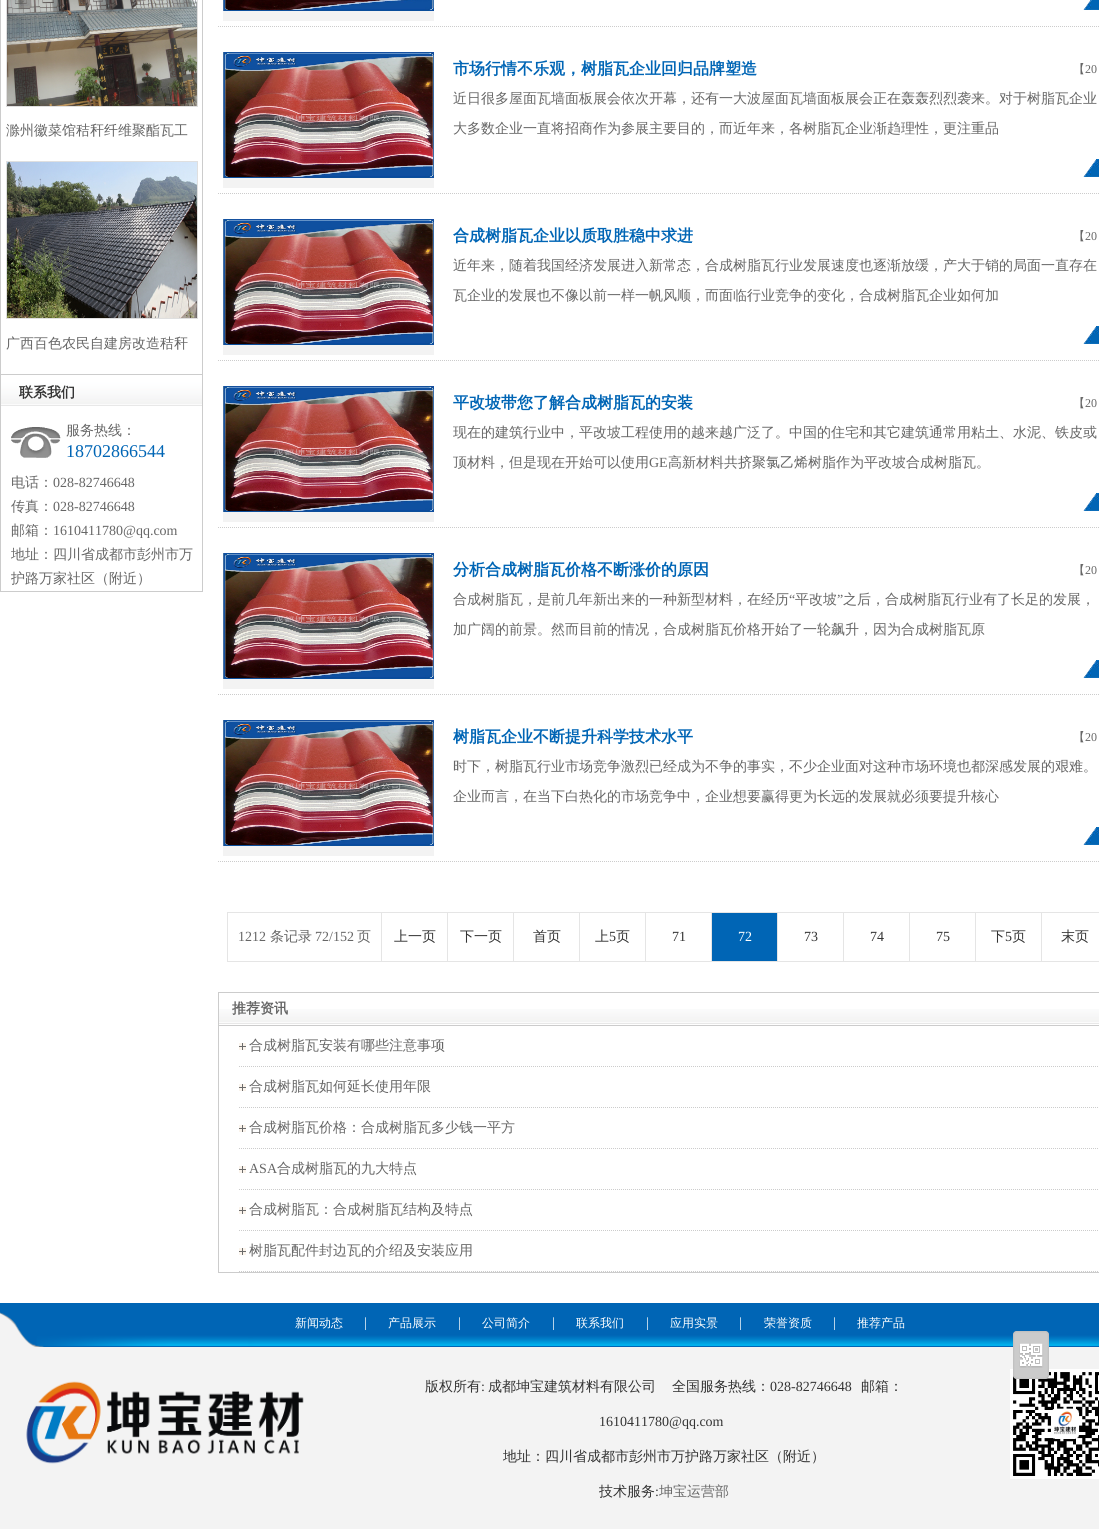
#include <cairo.h>
#include <math.h>
#include <stddef.h>

static cairo_t *c;
static void C(unsigned color){cairo_set_source_rgb(c, (color >> 16) / 255.0, (color >> 8 & 255) / 255.0, (color & 255) / 255.0);}
static void F(const char *family, double size, int italic, int bold){cairo_select_font_face(c, family, italic ? CAIRO_FONT_SLANT_ITALIC : CAIRO_FONT_SLANT_NORMAL,bold ? CAIRO_FONT_WEIGHT_BOLD : CAIRO_FONT_WEIGHT_NORMAL);cairo_set_font_size(c, size);}
static void T(double x, double y, const char *s){cairo_move_to(c, x, y);cairo_show_text(c, s);}
static void R(double x, double y, double w, double h){cairo_rectangle(c, x, y, w, h);cairo_fill(c);}
static void I(const char *path, double x, double y, double w, double h){cairo_surface_t *image = cairo_image_surface_create_from_png(path);cairo_save(c);cairo_set_source_surface(c, image, x, y);cairo_rectangle(c, x, y, w, h);cairo_fill(c);cairo_restore(c);cairo_surface_destroy(image);}
int main(void) {
cairo_surface_t *surface = cairo_image_surface_create(CAIRO_FORMAT_RGB24, 1099, 1529);
c = cairo_create(surface);
cairo_font_options_t *options = cairo_font_options_create();
cairo_font_options_set_hint_metrics(options, CAIRO_HINT_METRICS_OFF);
cairo_font_options_set_hint_style(options, CAIRO_HINT_STYLE_NONE);
cairo_set_font_options(c, options);
cairo_set_miter_limit(c, 4);
C(0xffffff);
cairo_paint(c);
cairo_rectangle(c,.5,-.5,202,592);
C(0xcccccc);
cairo_set_line_width(c,1);
cairo_stroke(c);
cairo_rectangle(c,6.5,-.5,191,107);
C(0xdfdfdf);
cairo_stroke(c);
I("1.png",7,0,190,106);
F("WenQuanYi Zen Hei Medium",14,0,0);
C(0x666666);
T(6,135,"滁州徽菜馆秸秆纤维聚酯瓦工");
cairo_rectangle(c,6.5,161.5,191,157);
C(0xdfdfdf);
cairo_stroke(c);
I("2.png",7,162,190,156);
C(0x666666);
T(6,348,"广西百色农民自建房改造秸秆");
C(0xcccccc);
R(1,374,201,1);
I("3.png",1,376,201,30);
F("WenQuanYi Zen Hei",14,0,1);
C(0x333333);
T(19,397,"联系我们");
I("4.png",11,427,50,31);
F("WenQuanYi Zen Hei Medium",14,0,0);
C(0x666666);
T(66,435,"服务热线：");
F("Liberation Serif",18,0,0);
C(0x0065b5);
T(66,457,"18702866544");
F("WenQuanYi Zen Hei Medium",14,0,0);
C(0x666666);
T(11,487,"电话：");
F("Liberation Serif",14,0,0);
T(53,487,"028-82746648");
F("WenQuanYi Zen Hei Medium",14,0,0);
T(11,511,"传真：");
F("Liberation Serif",14,0,0);
T(53,511,"028-82746648");
F("WenQuanYi Zen Hei Medium",14,0,0);
T(11,535,"邮箱：");
F("Liberation Serif",14,0,0);
T(53,535,"1610411780@qq.com");
F("WenQuanYi Zen Hei Medium",14,0,0);
T(11,559,"地址：四川省成都市彭州市万");
T(11,583,"护路万家社区（附近）");
cairo_new_path(c);
cairo_move_to(c,218,26.5);
cairo_line_to(c,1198,26.5);
C(0xcccccc);
cairo_set_dash(c,(double[]){1,1},2,0);
cairo_stroke(c);
C(0xf3f3f3);
R(223,11,211,10);
I("5.png",223,0,211,11);
I("6.png",1083,0,16,10);
cairo_new_path(c);
cairo_move_to(c,218,193.5);
cairo_line_to(c,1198,193.5);
C(0xcccccc);
cairo_stroke(c);
I("7.png",223,178,211,10);
I("8.png",223,52,211,126);
F("WenQuanYi Zen Hei",16,0,1);
C(0x0065b5);
T(453,74,"市场行情不乐观，树脂瓦企业回归品牌塑造");
F("WenQuanYi Zen Hei Medium",12,0,0);
C(0x666666);
T(1073,73,"【");
F("Liberation Serif",12,0,0);
T(1085,73,"20");
F("WenQuanYi Zen Hei Medium",14,0,0);
T(453,103,"近日很多屋面瓦墙面板展会依次开幕，还有一大波屋面瓦墙面板展会正在轰轰烈烈袭来。对于树脂瓦企业");
T(453,133,"大多数企业一直将招商作为参展主要目的，而近年来，各树脂瓦企业渐趋理性，更注重品");
I("9.png",1083,159,16,18);
cairo_new_path(c);
cairo_move_to(c,218,360.5);
cairo_line_to(c,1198,360.5);
C(0xcccccc);
cairo_stroke(c);
I("7.png",223,345,211,10);
I("8.png",223,219,211,126);
F("WenQuanYi Zen Hei",16,0,1);
C(0x0065b5);
T(453,241,"合成树脂瓦企业以质取胜稳中求进");
F("WenQuanYi Zen Hei Medium",12,0,0);
C(0x666666);
T(1073,240,"【");
F("Liberation Serif",12,0,0);
T(1085,240,"20");
F("WenQuanYi Zen Hei Medium",14,0,0);
T(453,270,"近年来，随着我国经济发展进入新常态，合成树脂瓦行业发展速度也逐渐放缓，产大于销的局面一直存在");
T(453,300,"瓦企业的发展也不像以前一样一帆风顺，而面临行业竞争的变化，合成树脂瓦企业如何加");
I("9.png",1083,326,16,18);
cairo_new_path(c);
cairo_move_to(c,218,527.5);
cairo_line_to(c,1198,527.5);
C(0xcccccc);
cairo_stroke(c);
I("7.png",223,512,211,10);
I("8.png",223,386,211,126);
F("WenQuanYi Zen Hei",16,0,1);
C(0x0065b5);
T(453,408,"平改坡带您了解合成树脂瓦的安装");
F("WenQuanYi Zen Hei Medium",12,0,0);
C(0x666666);
T(1073,407,"【");
F("Liberation Serif",12,0,0);
T(1085,407,"20");
F("WenQuanYi Zen Hei Medium",14,0,0);
T(453,437,"现在的建筑行业中，平改坡工程使用的越来越广泛了。中国的住宅和其它建筑通常用粘土、水泥、铁皮或");
T(453,467,"顶材料，但是现在开始可以使用");
F("Liberation Serif",14,0,0);
T(649,467,"GE");
F("WenQuanYi Zen Hei Medium",14,0,0);
T(668,467,"高新材料共挤聚氯乙烯树脂作为平改坡合成树脂瓦。");
I("9.png",1083,493,16,18);
cairo_new_path(c);
cairo_move_to(c,218,694.5);
cairo_line_to(c,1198,694.5);
C(0xcccccc);
cairo_stroke(c);
I("7.png",223,679,211,10);
I("8.png",223,553,211,126);
F("WenQuanYi Zen Hei",16,0,1);
C(0x0065b5);
T(453,575,"分析合成树脂瓦价格不断涨价的原因");
F("WenQuanYi Zen Hei Medium",12,0,0);
C(0x666666);
T(1073,574,"【");
F("Liberation Serif",12,0,0);
T(1085,574,"20");
F("WenQuanYi Zen Hei Medium",14,0,0);
T(453,604,"合成树脂瓦，是前几年新出来的一种新型材料，在经历");
F("Liberation Serif",14,0,0);
T(789,604,"“");
F("WenQuanYi Zen Hei Medium",14,0,0);
T(795,604,"平改坡");
F("Liberation Serif",14,0,0);
T(837,604,"”");
F("WenQuanYi Zen Hei Medium",14,0,0);
T(843,604,"之后，合成树脂瓦行业有了长足的发展，");
T(453,634,"加广阔的前景。然而目前的情况，合成树脂瓦价格开始了一轮飙升，因为合成树脂瓦原");
I("9.png",1083,660,16,18);
cairo_new_path(c);
cairo_move_to(c,218,861.5);
cairo_line_to(c,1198,861.5);
C(0xcccccc);
cairo_stroke(c);
I("7.png",223,846,211,10);
I("8.png",223,720,211,126);
F("WenQuanYi Zen Hei",16,0,1);
C(0x0065b5);
T(453,742,"树脂瓦企业不断提升科学技术水平");
F("WenQuanYi Zen Hei Medium",12,0,0);
C(0x666666);
T(1073,741,"【");
F("Liberation Serif",12,0,0);
T(1085,741,"20");
F("WenQuanYi Zen Hei Medium",14,0,0);
T(453,771,"时下，树脂瓦行业市场竞争激烈已经成为不争的事实，不少企业面对这种市场环境也都深感发展的艰难。");
T(453,801,"企业而言，在当下白热化的市场竞争中，企业想要赢得更为长远的发展就必须要提升核心");
I("9.png",1083,827,16,18);
cairo_rectangle(c,227.5,912.5,154,49);
C(0xe5e5e5);
cairo_set_dash(c,NULL,0,0);
cairo_stroke(c);
F("Liberation Serif",14,0,0);
C(0x666666);
T(238,941,"1212");
F("WenQuanYi Zen Hei Medium",14,0,0);
T(270,941,"条记录");
F("Liberation Serif",14,0,0);
T(315,941,"72/152");
F("WenQuanYi Zen Hei Medium",14,0,0);
T(357,941,"页");
cairo_rectangle(c,381.5,912.5,66,49);
C(0xe5e5e5);
cairo_stroke(c);
C(0x333333);
T(394,941,"上一页");
cairo_rectangle(c,447.5,912.5,66,49);
C(0xe5e5e5);
cairo_stroke(c);
C(0x333333);
T(460,941,"下一页");
cairo_rectangle(c,513.5,912.5,66,49);
C(0xe5e5e5);
cairo_stroke(c);
C(0x333333);
T(533,941,"首页");
cairo_rectangle(c,579.5,912.5,66,49);
C(0xe5e5e5);
cairo_stroke(c);
C(0x333333);
T(595,941,"上");
F("Liberation Serif",14,0,0);
T(609,941,"5");
F("WenQuanYi Zen Hei Medium",14,0,0);
T(616,941,"页");
cairo_rectangle(c,645.5,912.5,66,49);
C(0xe5e5e5);
cairo_stroke(c);
F("Liberation Serif",14,0,0);
C(0x333333);
T(672,941,"71");
C(0x0065b5);
cairo_rectangle(c,711.5,912.5,66,49);
cairo_fill_preserve(c);
C(0xe5e5e5);
cairo_stroke(c);
C(0xffffff);
T(738,941,"72");
cairo_rectangle(c,777.5,912.5,66,49);
C(0xe5e5e5);
cairo_stroke(c);
C(0x333333);
T(804,941,"73");
cairo_rectangle(c,843.5,912.5,66,49);
C(0xe5e5e5);
cairo_stroke(c);
C(0x333333);
T(870,941,"74");
cairo_rectangle(c,909.5,912.5,66,49);
C(0xe5e5e5);
cairo_stroke(c);
C(0x333333);
T(936,941,"75");
cairo_rectangle(c,975.5,912.5,66,49);
C(0xe5e5e5);
cairo_stroke(c);
F("WenQuanYi Zen Hei Medium",14,0,0);
C(0x333333);
T(991,941,"下");
F("Liberation Serif",14,0,0);
T(1005,941,"5");
F("WenQuanYi Zen Hei Medium",14,0,0);
T(1012,941,"页");
cairo_rectangle(c,1041.5,912.5,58,49);
C(0xe5e5e5);
cairo_stroke(c);
C(0x333333);
T(1061,941,"末页");
I("10.png",219,1009,880,15);
cairo_rectangle(c,218.5,992.5,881,33);
C(0xcccccc);
cairo_stroke(c);
F("WenQuanYi Zen Hei",14,0,1);
C(0x666666);
T(232,1013,"推荐资讯");
C(0xcccccc);
R(218,1272,881,1);
R(218,1026,1,247);
I("11.png",239,1043,7,7);
cairo_new_path(c);
cairo_move_to(c,239,1066.5);
cairo_line_to(c,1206,1066.5);
cairo_set_dash(c,(double[]){1,1},2,0);
cairo_stroke(c);
F("WenQuanYi Zen Hei Medium",14,0,0);
C(0x666666);
T(249,1050,"合成树脂瓦安装有哪些注意事项");
I("11.png",239,1084,7,7);
cairo_new_path(c);
cairo_move_to(c,239,1107.5);
cairo_line_to(c,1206,1107.5);
C(0xcccccc);
cairo_stroke(c);
C(0x666666);
T(249,1091,"合成树脂瓦如何延长使用年限");
I("11.png",239,1125,7,7);
cairo_new_path(c);
cairo_move_to(c,239,1148.5);
cairo_line_to(c,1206,1148.5);
C(0xcccccc);
cairo_stroke(c);
C(0x666666);
T(249,1132,"合成树脂瓦价格：合成树脂瓦多少钱一平方");
I("11.png",239,1166,7,7);
cairo_new_path(c);
cairo_move_to(c,239,1189.5);
cairo_line_to(c,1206,1189.5);
C(0xcccccc);
cairo_stroke(c);
F("Liberation Serif",14,0,0);
C(0x666666);
T(249,1173,"ASA");
F("WenQuanYi Zen Hei Medium",14,0,0);
T(277,1173,"合成树脂瓦的九大特点");
I("11.png",239,1207,7,7);
cairo_new_path(c);
cairo_move_to(c,239,1230.5);
cairo_line_to(c,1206,1230.5);
C(0xcccccc);
cairo_stroke(c);
C(0x666666);
T(249,1214,"合成树脂瓦：合成树脂瓦结构及特点");
I("11.png",239,1248,7,7);
cairo_new_path(c);
cairo_move_to(c,239,1271.5);
cairo_line_to(c,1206,1271.5);
C(0xcccccc);
cairo_stroke(c);
C(0x666666);
T(249,1255,"树脂瓦配件封边瓦的介绍及安装应用");
C(0xf3f3f3);
R(0,1313,1099,216);
I("12.png",0,1303,1099,44);
F("WenQuanYi Zen Hei Medium",12,0,0);
C(0xffffff);
T(295,1327,"新闻动态");
F("Liberation Serif",14,0,0);
T(364,1327,"|");
F("WenQuanYi Zen Hei Medium",12,0,0);
T(388,1327,"产品展示");
F("Liberation Serif",14,0,0);
T(458,1327,"|");
F("WenQuanYi Zen Hei Medium",12,0,0);
T(482,1327,"公司简介");
F("Liberation Serif",14,0,0);
T(552,1327,"|");
F("WenQuanYi Zen Hei Medium",12,0,0);
T(576,1327,"联系我们");
F("Liberation Serif",14,0,0);
T(646,1327,"|");
F("WenQuanYi Zen Hei Medium",12,0,0);
T(670,1327,"应用实景");
F("Liberation Serif",14,0,0);
T(739,1327,"|");
F("WenQuanYi Zen Hei Medium",12,0,0);
T(764,1327,"荣誉资质");
F("Liberation Serif",14,0,0);
T(833,1327,"|");
F("WenQuanYi Zen Hei Medium",12,0,0);
T(857,1327,"推荐产品");
I("15.png",1010,1369,89,110);
I("13.png",1013,1331,36,48);
I("14.png",26,1381,278,83);
F("WenQuanYi Zen Hei Medium",14,0,0);
C(0x333333);
T(425,1391,"版权所有");
F("Liberation Serif",14,0,0);
T(481,1391,":");
F("WenQuanYi Zen Hei Medium",14,0,0);
T(488,1391,"成都坤宝建筑材料有限公司");
T(672,1391,"全国服务热线：");
F("Liberation Serif",14,0,0);
T(770,1391,"028-82746648");
F("WenQuanYi Zen Hei Medium",14,0,0);
T(861,1391,"邮箱：");
F("Liberation Serif",14,0,0);
T(599,1426,"1610411780@qq.com");
F("WenQuanYi Zen Hei Medium",14,0,0);
T(503,1461,"地址：四川省成都市彭州市万护路万家社区（附近）");
T(599,1496,"技术服务");
F("Liberation Serif",14,0,0);
T(655,1496,":");
F("WenQuanYi Zen Hei Medium",14,0,0);
C(0x666666);
T(659,1496,"坤宝运营部");
cairo_surface_write_to_png(surface, "o.png");
cairo_font_options_destroy(options);
cairo_destroy(c);
cairo_surface_destroy(surface);
return 0;
}
